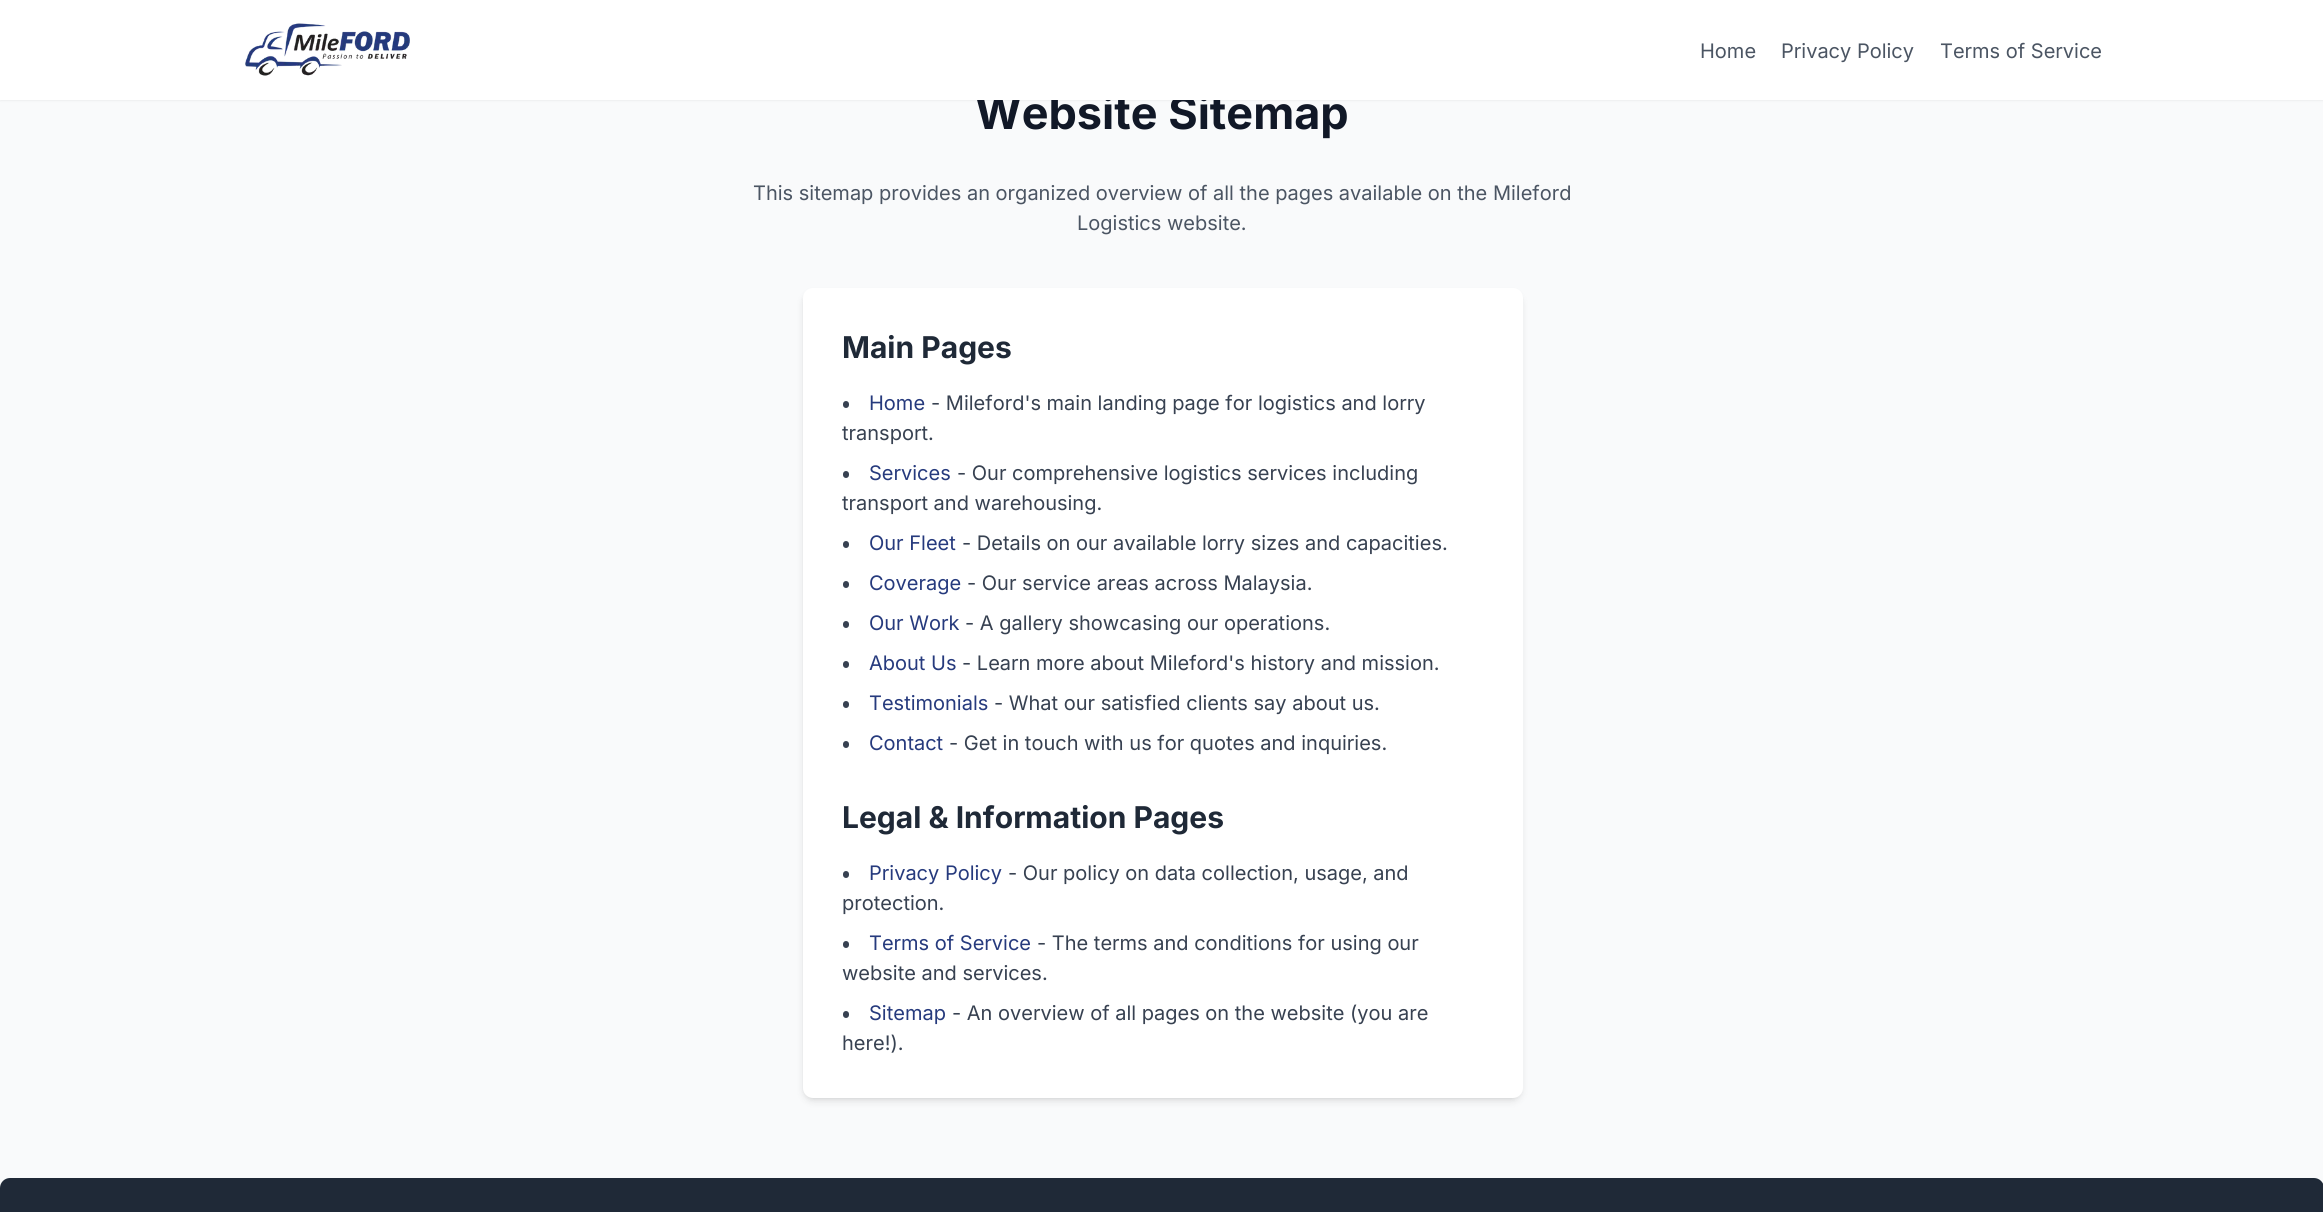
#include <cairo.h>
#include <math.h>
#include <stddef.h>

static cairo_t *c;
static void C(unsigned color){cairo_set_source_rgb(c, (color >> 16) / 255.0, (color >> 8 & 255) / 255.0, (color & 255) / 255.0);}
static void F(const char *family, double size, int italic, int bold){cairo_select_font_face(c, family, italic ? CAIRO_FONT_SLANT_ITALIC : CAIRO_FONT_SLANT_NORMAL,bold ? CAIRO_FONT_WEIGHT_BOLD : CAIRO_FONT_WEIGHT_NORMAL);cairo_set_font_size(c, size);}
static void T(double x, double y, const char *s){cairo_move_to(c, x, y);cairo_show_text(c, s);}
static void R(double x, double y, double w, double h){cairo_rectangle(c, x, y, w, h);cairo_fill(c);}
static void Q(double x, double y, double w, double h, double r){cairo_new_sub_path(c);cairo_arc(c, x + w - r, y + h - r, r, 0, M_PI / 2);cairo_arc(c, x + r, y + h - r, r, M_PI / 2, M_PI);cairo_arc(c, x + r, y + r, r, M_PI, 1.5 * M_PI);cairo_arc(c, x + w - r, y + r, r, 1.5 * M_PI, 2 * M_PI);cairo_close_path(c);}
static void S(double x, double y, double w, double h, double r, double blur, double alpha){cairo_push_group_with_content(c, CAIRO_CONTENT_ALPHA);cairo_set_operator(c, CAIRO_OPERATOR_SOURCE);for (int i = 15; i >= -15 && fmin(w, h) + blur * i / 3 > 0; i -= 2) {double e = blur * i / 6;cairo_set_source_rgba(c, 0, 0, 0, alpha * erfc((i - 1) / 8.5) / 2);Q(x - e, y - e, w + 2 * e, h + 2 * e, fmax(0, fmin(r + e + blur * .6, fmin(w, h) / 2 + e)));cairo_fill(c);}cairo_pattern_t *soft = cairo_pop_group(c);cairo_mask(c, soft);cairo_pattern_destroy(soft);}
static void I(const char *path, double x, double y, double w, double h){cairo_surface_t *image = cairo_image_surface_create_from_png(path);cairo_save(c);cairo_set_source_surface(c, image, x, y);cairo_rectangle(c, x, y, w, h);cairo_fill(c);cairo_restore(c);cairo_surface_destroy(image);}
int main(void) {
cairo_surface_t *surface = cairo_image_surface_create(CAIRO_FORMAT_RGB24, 2323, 1212);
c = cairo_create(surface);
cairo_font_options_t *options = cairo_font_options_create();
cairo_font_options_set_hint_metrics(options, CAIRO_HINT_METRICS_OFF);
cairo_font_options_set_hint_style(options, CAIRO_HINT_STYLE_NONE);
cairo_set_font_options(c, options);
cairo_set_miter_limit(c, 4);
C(0xf9fafb);
cairo_paint(c);
C(0x000000);
S(0,1,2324,100,0,1,.05);
F("Inter",45,0,1);
C(0x111827);
T(975,129,"Website Sitemap");
C(0xffffff);
R(0,0,2323,100);
I("1.png",245,23,165,53);
F("Inter",20,0,0);
C(0x4b5563);
T(1700,58,"Home");
T(1781,58,"Privacy Policy");
T(1940,58,"Terms of Service");
T(753,200,"This sitemap provides an organized overview of all the pages available on the Mileford");
T(1077,230,"Logistics website.");
C(0x000000);
S(805,293,715,805,8,2.5,.1);
S(804,294,717,807,9,4,.1);
C(0xffffff);
Q(803,288,720,810,10);
cairo_fill(c);
F("Inter",30,0,1);
C(0x1f2937);
T(842,358,"Main Pages");
C(0x374151);
Q(843,401,6,7,3);
cairo_fill(c);
F("Inter",20,0,0);
C(0x263a7d);
T(869,410,"Home");
C(0x374151);
T(931,410,"- Mileford's main landing page for logistics and lorry");
T(842,440,"transport.");
Q(843,471,6,7,3);
cairo_fill(c);
C(0x263a7d);
T(869,480,"Services");
C(0x374151);
T(957,480,"- Our comprehensive logistics services including");
T(842,510,"transport and warehousing.");
Q(843,541,6,7,3);
cairo_fill(c);
C(0x263a7d);
T(869,550,"Our Fleet");
C(0x374151);
T(962,550,"- Details on our available lorry sizes and capacities.");
Q(843,581,6,7,3);
cairo_fill(c);
C(0x263a7d);
T(869,590,"Coverage");
C(0x374151);
T(967,590,"- Our service areas across Malaysia.");
Q(843,621,6,7,3);
cairo_fill(c);
C(0x263a7d);
T(869,630,"Our Work");
C(0x374151);
T(965,630,"- A gallery showcasing our operations.");
Q(843,661,6,7,3);
cairo_fill(c);
C(0x263a7d);
T(869,670,"About Us");
C(0x374151);
T(962,670,"- Learn more about Mileford's history and mission.");
Q(843,701,6,7,3);
cairo_fill(c);
C(0x263a7d);
T(869,710,"Testimonials");
C(0x374151);
T(994,710,"- What our satisfied clients say about us.");
Q(843,741,6,7,3);
cairo_fill(c);
C(0x263a7d);
T(869,750,"Contact");
C(0x374151);
T(949,750,"- Get in touch with us for quotes and inquiries.");
F("Inter",30,0,1);
C(0x1f2937);
T(842,828,"Legal & Information Pages");
C(0x374151);
Q(843,871,6,7,3);
cairo_fill(c);
F("Inter",20,0,0);
C(0x263a7d);
T(869,880,"Privacy Policy");
C(0x374151);
T(1008,880,"- Our policy on data collection, usage, and");
T(842,910,"protection.");
Q(843,941,6,7,3);
cairo_fill(c);
C(0x263a7d);
T(869,950,"Terms of Service");
C(0x374151);
T(1037,950,"- The terms and conditions for using our");
T(842,980,"website and services.");
Q(843,1011,6,7,3);
cairo_fill(c);
C(0x263a7d);
T(869,1020,"Sitemap");
C(0x374151);
T(952,1020,"- An overview of all pages on the website (you are");
T(842,1050,"here!).");
C(0x1f2937);
cairo_new_path(c);
cairo_move_to(c,10,1178);
cairo_line_to(c,2314,1178);
cairo_curve_to(c,2319.5,1178,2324,1182.5,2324,1188);
cairo_line_to(c,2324,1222);
cairo_line_to(c,0,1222);
cairo_line_to(c,0,1188);
cairo_curve_to(c,0,1182.5,4.5,1178,10,1178);
cairo_close_path(c);
cairo_fill(c);
cairo_surface_write_to_png(surface, "o.png");
cairo_font_options_destroy(options);
cairo_destroy(c);
cairo_surface_destroy(surface);
return 0;
}
